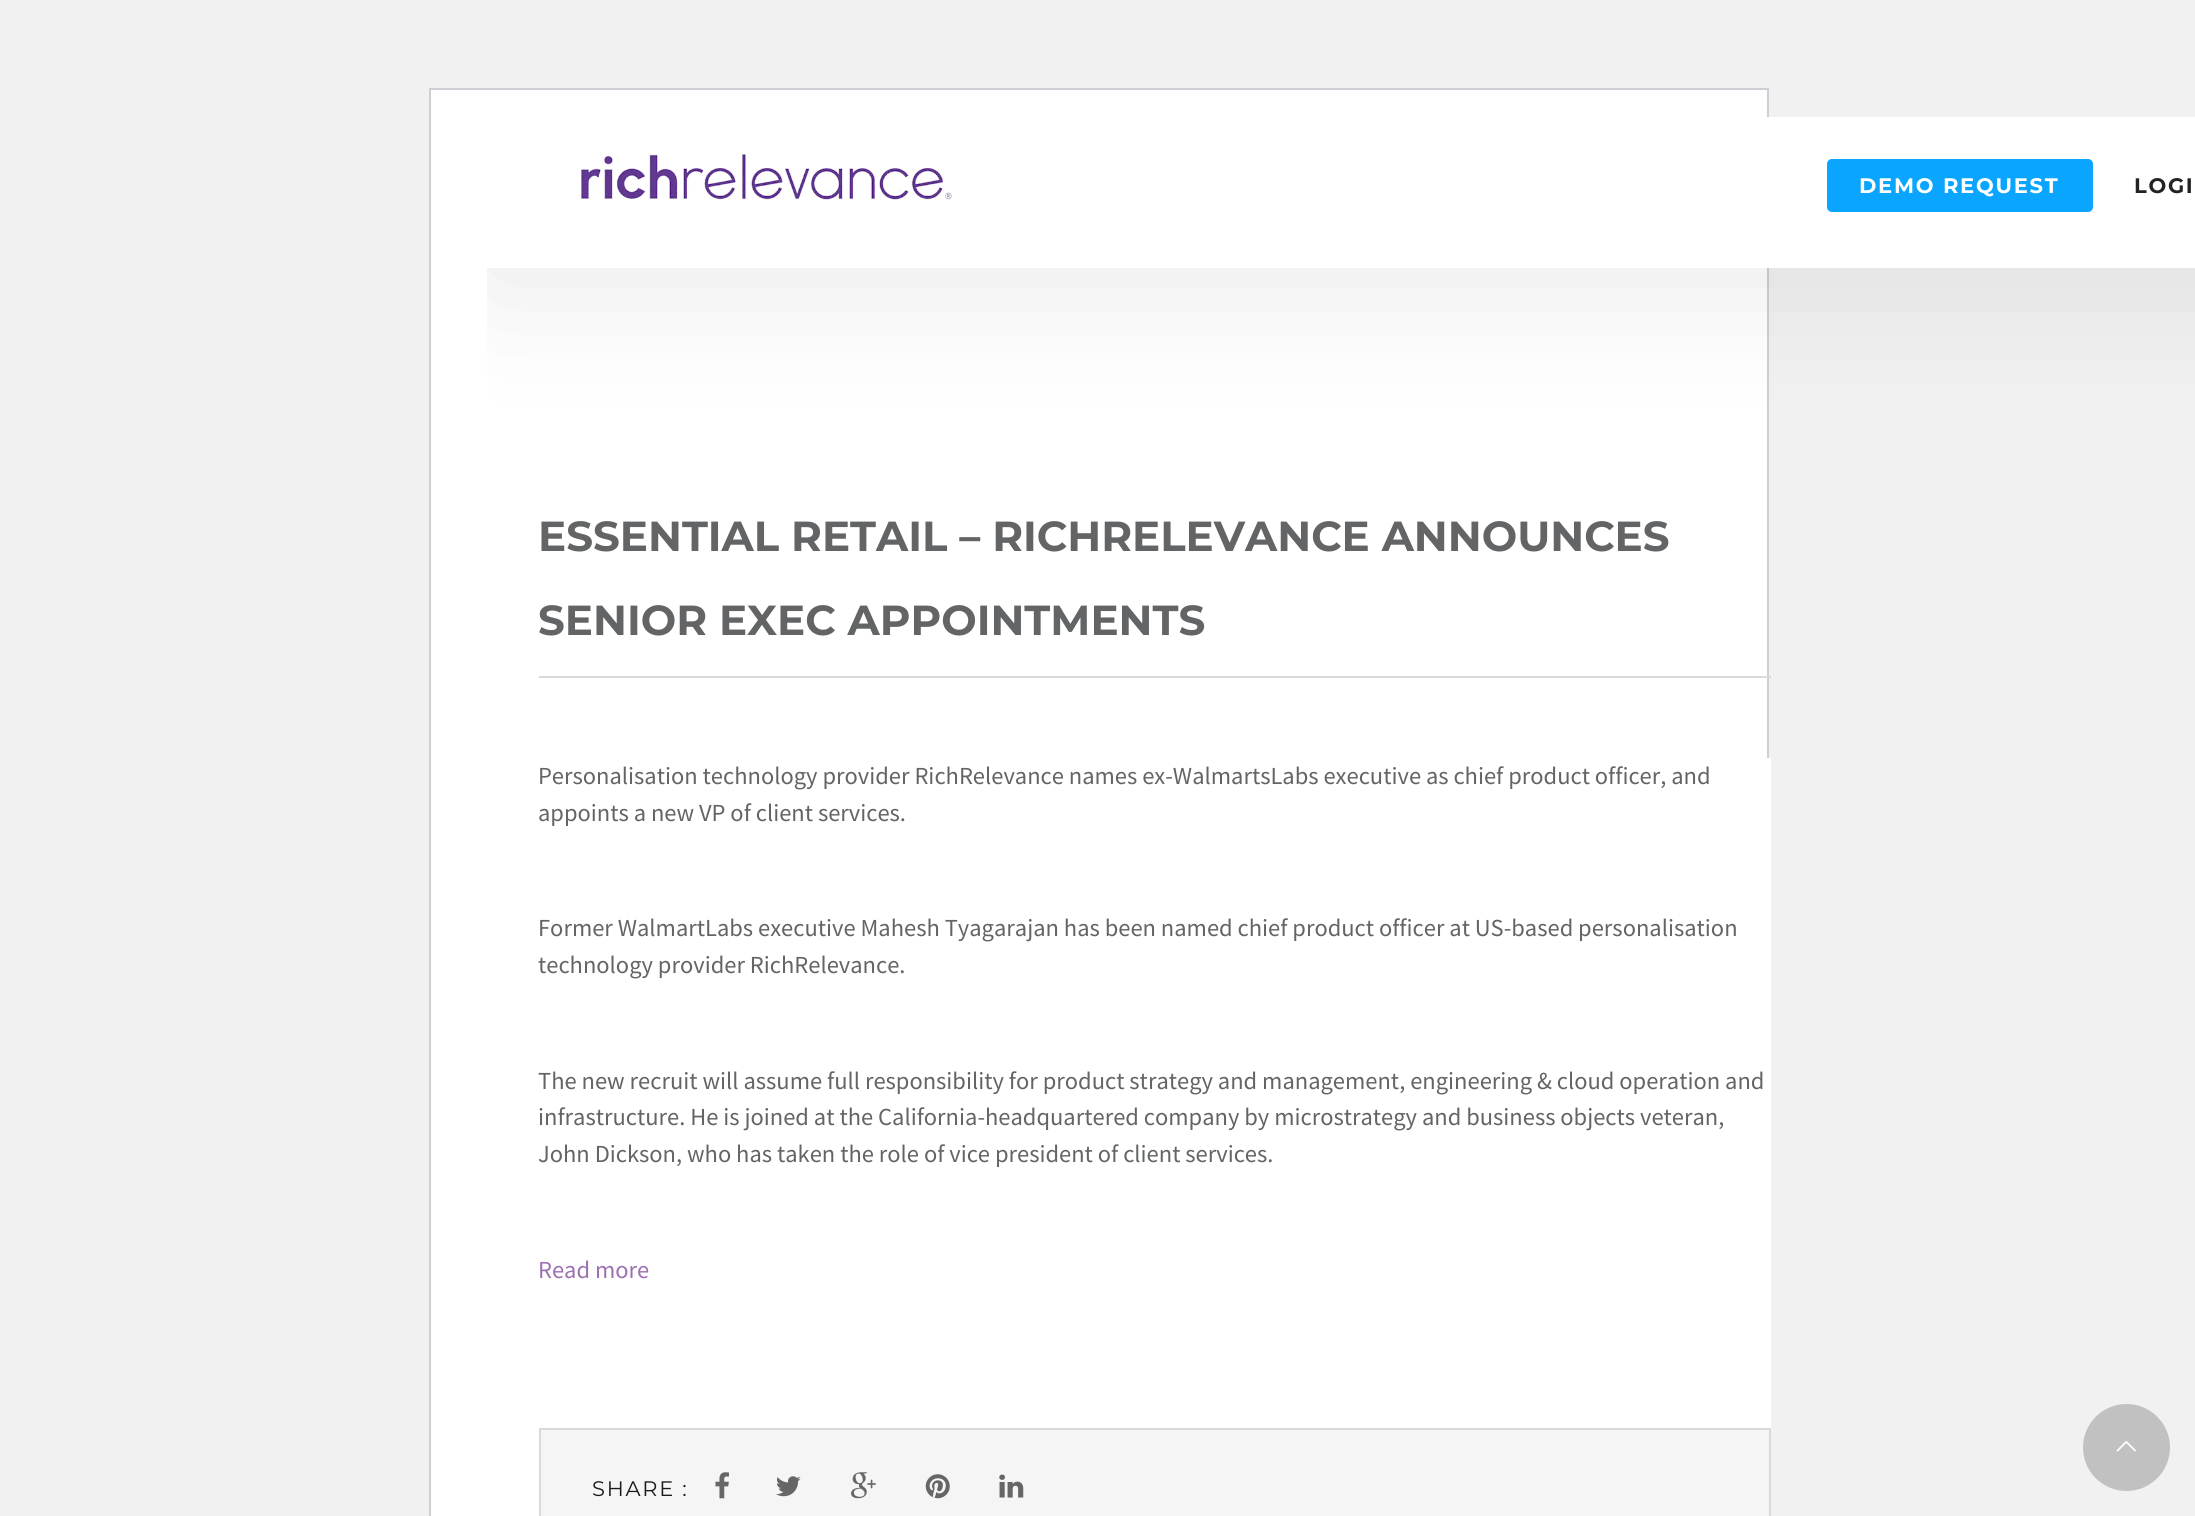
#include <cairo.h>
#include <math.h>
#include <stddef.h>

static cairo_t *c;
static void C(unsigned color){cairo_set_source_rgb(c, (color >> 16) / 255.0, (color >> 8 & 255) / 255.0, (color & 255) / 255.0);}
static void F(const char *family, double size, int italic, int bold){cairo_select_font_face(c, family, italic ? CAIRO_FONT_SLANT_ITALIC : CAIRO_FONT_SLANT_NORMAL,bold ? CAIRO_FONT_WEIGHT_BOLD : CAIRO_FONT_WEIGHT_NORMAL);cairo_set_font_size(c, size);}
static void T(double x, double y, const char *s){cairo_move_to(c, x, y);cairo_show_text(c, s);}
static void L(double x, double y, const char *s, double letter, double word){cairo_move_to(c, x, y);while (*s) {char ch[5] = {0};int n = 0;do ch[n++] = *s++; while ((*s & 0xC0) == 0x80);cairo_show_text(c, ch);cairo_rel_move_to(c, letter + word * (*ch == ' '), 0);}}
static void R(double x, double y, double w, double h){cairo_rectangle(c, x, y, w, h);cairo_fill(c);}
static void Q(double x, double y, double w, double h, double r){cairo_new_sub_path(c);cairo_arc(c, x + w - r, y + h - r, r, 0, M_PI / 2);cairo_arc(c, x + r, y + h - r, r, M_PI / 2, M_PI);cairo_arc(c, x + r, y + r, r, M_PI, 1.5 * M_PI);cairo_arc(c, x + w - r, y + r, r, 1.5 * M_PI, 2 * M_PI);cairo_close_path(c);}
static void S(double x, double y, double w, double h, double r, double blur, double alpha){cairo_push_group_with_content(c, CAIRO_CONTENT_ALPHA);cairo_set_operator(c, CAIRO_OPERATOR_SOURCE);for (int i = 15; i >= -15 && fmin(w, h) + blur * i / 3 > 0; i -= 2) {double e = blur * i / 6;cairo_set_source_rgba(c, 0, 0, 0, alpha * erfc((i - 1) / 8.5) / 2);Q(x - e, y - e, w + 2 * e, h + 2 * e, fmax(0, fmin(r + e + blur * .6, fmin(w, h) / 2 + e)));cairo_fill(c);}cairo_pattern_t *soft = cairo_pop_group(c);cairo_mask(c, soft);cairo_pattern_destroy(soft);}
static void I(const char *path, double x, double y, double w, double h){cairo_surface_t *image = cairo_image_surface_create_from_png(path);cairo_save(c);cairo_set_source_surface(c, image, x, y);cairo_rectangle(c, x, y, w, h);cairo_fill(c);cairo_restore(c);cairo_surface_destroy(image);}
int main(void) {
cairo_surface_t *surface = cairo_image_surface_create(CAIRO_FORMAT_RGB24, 2195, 1516);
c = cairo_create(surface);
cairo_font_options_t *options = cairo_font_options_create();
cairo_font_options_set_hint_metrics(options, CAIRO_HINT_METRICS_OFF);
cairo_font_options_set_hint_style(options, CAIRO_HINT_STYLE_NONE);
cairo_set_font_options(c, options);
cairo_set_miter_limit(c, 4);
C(0xf1f1f1);
cairo_paint(c);
C(0xffffff);
cairo_rectangle(c,430,89,1338,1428);
cairo_fill_preserve(c);
C(0xccd0d4);
cairo_stroke(c);
cairo_save(c);
cairo_rectangle(c,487,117,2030,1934);
cairo_clip(c);
C(0x000000);
S(487,126,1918,151,0,70,.1);
cairo_restore(c);
C(0xffffff);
R(487,117,1708,151);
I("1.png",580,154,372,48);
C(0x0aa5ff);
Q(1827,159,266,53,5);
cairo_fill(c);
F("Montserrat",21,0,1);
C(0xffffff);
L(1859,193,"DEMO REQUEST",1.75,0);
C(0x232323);
L(2134,193,"LOGI",1.75,0);
C(0xdadada);
R(539,676,1232,2);
F("Montserrat",42,0,1);
C(0x626466);
T(538,551,"ESSENTIAL RETAIL – RICHRELEVANCE ANNOUNCES");
T(538,635,"SENIOR EXEC APPOINTMENTS");
C(0xffffff);
R(1767,758,4,670);
F("Source Sans Pro",24.5,0,0);
C(0x626466);
T(538,784,"Personalisation technology provider RichRelevance names ex-WalmartsLabs executive as chief product officer, and");
T(538,821,"appoints a new VP of client services.");
T(538,936,"Former WalmartLabs executive Mahesh Tyagarajan has been named chief product officer at US-based personalisation");
T(538,973,"technology provider RichRelevance.");
T(538,1089,"The new recruit will assume full responsibility for product strategy and management, engineering & cloud operation and");
T(538,1125,"infrastructure. He is joined at the California-headquartered company by microstrategy and business objects veteran,");
T(538,1162,"John Dickson, who has taken the role of vice president of client services.");
C(0x9d70b1);
T(538,1278,"Read more");
C(0xf5f5f5);
cairo_rectangle(c,540,1429,1230,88);
cairo_fill_preserve(c);
C(0xd9d9d9);
cairo_stroke(c);
F("Montserrat",21,0,0);
C(0x1a1a1a);
L(592,1496,"SHARE :",1.75,0);
I("2.png",715,1472,14,27);
I("3.png",776,1476,25,21);
I("4.png",851,1472,25,27);
I("5.png",925,1474,25,25);
I("6.png",999,1474,25,24);
C(0xc1c1c1);
cairo_arc(c,2126.5,1447.5,43.5,0,2 * M_PI);
cairo_fill(c);
I("7.png",2116,1440,20,12);
cairo_surface_write_to_png(surface, "o.png");
cairo_font_options_destroy(options);
cairo_destroy(c);
cairo_surface_destroy(surface);
return 0;
}
